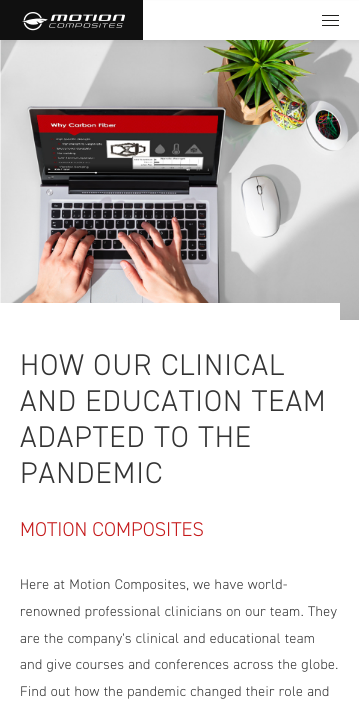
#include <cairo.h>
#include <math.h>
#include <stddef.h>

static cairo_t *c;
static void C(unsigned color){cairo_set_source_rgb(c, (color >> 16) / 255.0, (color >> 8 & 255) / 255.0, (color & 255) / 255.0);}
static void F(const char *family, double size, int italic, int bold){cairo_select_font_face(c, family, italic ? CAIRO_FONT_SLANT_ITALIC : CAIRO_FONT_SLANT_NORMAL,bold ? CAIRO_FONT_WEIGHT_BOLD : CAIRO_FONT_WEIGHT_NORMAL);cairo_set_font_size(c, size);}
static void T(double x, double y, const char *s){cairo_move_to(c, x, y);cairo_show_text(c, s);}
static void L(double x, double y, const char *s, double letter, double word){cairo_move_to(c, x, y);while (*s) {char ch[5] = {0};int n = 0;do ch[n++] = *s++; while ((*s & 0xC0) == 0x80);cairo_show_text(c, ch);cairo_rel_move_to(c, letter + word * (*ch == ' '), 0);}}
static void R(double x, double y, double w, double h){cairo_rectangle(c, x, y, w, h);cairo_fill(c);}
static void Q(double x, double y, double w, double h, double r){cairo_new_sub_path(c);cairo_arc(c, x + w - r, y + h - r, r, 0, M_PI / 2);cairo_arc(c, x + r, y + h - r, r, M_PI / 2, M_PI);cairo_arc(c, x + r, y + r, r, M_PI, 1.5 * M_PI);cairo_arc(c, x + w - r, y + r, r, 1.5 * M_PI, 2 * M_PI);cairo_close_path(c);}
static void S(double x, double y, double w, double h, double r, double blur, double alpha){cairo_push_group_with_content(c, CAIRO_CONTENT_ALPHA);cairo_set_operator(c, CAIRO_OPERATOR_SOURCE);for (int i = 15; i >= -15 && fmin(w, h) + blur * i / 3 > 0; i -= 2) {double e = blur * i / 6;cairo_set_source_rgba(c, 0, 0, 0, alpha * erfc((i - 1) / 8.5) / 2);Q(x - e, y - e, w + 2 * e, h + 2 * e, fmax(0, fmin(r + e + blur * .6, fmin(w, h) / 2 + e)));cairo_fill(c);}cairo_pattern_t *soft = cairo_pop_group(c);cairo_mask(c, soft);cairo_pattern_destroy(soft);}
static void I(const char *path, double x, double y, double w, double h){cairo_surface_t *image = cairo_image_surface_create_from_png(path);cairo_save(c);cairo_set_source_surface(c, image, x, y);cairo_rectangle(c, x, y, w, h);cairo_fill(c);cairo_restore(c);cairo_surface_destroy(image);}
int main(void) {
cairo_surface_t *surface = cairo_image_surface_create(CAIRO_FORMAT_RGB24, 359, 718);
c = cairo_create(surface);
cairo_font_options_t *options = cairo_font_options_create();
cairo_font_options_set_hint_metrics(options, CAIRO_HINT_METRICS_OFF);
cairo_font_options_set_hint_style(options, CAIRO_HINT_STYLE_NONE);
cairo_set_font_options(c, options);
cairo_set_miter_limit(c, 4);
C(0xffffff);
cairo_paint(c);
I("2.png",0,40,359,280);
C(0x000000);
S(3,3,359,40,0,2.5,.05);
C(0x101010);
R(0,0,143,40);
I("1.png",22,12,103,19);
C(0xffffff);
R(143,1,216,39);
C(0x1d1d1b);
R(322,15,17,1);
R(322,20,17,1);
R(322,25,17,1);
C(0xffffff);
R(0,303,340,17);
F("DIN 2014 Light",30,0,0);
C(0x333333);
L(20,375,"HOW OUR CLINICAL",1,0);
L(20,411,"AND EDUCATION TEAM",1,0);
L(20,447,"ADAPTED TO THE",1,0);
L(20,483,"PANDEMIC",1,0);
F("DIN 2014 Light",20,0,0);
C(0xc51a1b);
T(20,536,"MOTION COMPOSITES");
F("DIN 2014 Light",14,0,0);
C(0x333333);
L(20,589,"Here at Motion Composites, we have world-",.4,0);
L(20,616,"renowned professional clinicians on our team. They",.4,0);
L(20,643,"are the company's clinical and educational team",.4,0);
L(20,669,"and give courses and conferences across the globe.",.4,0);
L(20,696,"Find out how the pandemic changed their role and",.4,0);
cairo_surface_write_to_png(surface, "o.png");
cairo_font_options_destroy(options);
cairo_destroy(c);
cairo_surface_destroy(surface);
return 0;
}
